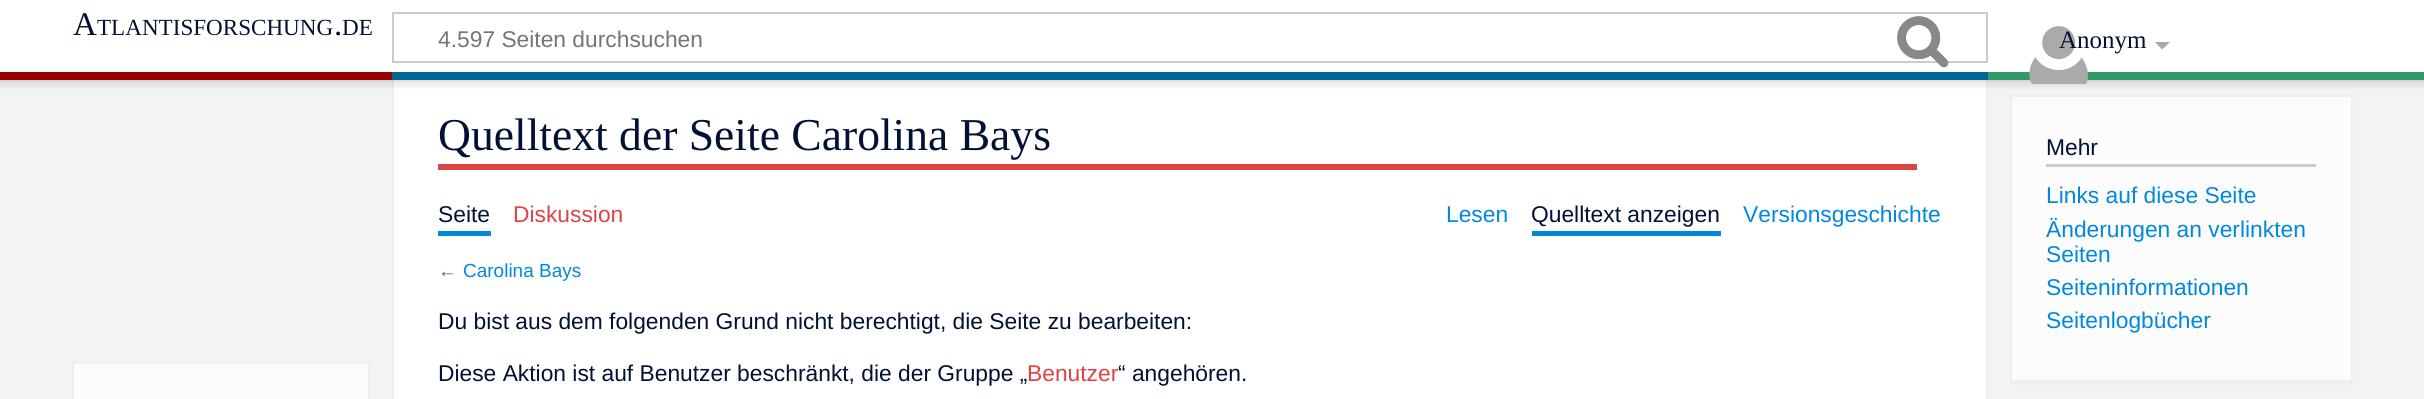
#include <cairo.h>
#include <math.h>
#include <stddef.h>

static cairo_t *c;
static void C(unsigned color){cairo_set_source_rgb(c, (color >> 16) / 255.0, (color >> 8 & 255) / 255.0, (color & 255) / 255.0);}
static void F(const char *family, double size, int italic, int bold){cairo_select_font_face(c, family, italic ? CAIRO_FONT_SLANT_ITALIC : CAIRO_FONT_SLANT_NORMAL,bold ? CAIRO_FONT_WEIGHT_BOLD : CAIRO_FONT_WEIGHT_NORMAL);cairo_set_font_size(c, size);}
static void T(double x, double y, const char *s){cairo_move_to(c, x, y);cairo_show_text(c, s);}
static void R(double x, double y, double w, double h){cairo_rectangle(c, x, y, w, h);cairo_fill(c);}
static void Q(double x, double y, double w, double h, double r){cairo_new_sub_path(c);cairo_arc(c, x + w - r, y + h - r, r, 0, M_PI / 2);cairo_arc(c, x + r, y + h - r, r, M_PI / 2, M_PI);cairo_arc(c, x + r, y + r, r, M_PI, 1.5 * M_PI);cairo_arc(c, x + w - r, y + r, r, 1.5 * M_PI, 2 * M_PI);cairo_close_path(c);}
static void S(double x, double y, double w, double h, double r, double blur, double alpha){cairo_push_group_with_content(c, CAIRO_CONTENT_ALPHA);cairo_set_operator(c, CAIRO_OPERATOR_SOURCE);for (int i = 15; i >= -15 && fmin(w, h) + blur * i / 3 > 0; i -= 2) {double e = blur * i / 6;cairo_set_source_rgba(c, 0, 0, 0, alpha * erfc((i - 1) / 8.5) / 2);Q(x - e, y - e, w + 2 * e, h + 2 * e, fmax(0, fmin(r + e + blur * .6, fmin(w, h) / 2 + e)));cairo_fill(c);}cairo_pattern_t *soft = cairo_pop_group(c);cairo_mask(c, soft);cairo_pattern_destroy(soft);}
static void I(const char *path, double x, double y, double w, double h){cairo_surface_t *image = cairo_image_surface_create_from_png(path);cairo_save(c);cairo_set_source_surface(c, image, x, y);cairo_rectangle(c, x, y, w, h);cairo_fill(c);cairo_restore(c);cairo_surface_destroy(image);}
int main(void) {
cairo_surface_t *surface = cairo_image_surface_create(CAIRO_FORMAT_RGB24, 2424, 399);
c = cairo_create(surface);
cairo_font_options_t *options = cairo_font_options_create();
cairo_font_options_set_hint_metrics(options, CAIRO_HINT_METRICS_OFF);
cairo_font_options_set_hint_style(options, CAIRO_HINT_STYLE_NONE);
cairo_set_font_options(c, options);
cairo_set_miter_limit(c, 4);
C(0xf3f3f3);
cairo_paint(c);
C(0xffffff);
R(394,80,1592,319);
C(0xeeeeee);
R(1986,72,2,327);
R(392,72,2,327);
C(0x000000);
S(0,72,2424,8,0,1.5,.2);
S(-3,74,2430,13,0,2,.07);
C(0xffffff);
R(0,0,2424,72);
F("Liberation Serif",33,0,0);
C(0x001133);
T(73,35,"A");
F("Liberation Serif",23.1,0,0);
T(97,35,"TLANTISFORSCHUNG");
F("Liberation Serif",33,0,0);
T(334,35,".");
F("Liberation Serif",23.1,0,0);
T(342,35,"DE");
cairo_rectangle(c,393,13,1594,49);
C(0xcccccc);
cairo_stroke(c);
I("1.png",1897,16,52,52);
F("Liberation Sans",22.8,0,0);
C(0x757575);
T(438,47,"4.597 Seiten durchsuchen");
I("2.png",1897,16,52,52);
C(0x339966);
R(1988,72,436,8);
I("3.png",2029,26,59,58);
F("Liberation Serif",25,0,0);
C(0x001133);
T(2059,48,"Anonym");
C(0xaaaaaa);
cairo_new_path(c);
cairo_move_to(c,2170,42);
cairo_line_to(c,2162,49.5);
cairo_line_to(c,2155,42);
cairo_close_path(c);
cairo_fill(c);
C(0x990000);
R(0,72,392,8);
C(0x006699);
R(392,72,1596,8);
C(0xdd4444);
R(438,164,1479,6);
F("Liberation Serif",45.6,0,0);
C(0x001133);
T(438,150,"Quelltext der Seite Carolina Bays");
C(0x0088dd);
R(438,231,53,5);
F("Liberation Sans",22.8,0,0);
C(0x001133);
T(438,222,"Seite");
C(0xdd4444);
T(513,222,"Diskussion");
C(0x0088dd);
T(1446,222,"Lesen");
R(1532,231,189,5);
C(0x001133);
T(1531,222,"Quelltext anzeigen");
C(0x0088dd);
T(1743,222,"Versionsgeschichte");
F("Liberation Sans",19,0,0);
C(0x666666);
T(438,277,"←");
C(0x0088dd);
T(463,277,"Carolina Bays");
F("Liberation Sans",22.8,0,0);
C(0x001133);
T(438,329,"Du bist aus dem folgenden Grund nicht berechtigt, die Seite zu bearbeiten:");
T(438,381,"Diese Aktion ist auf Benutzer beschränkt, die der Gruppe „");
C(0xdd4444);
T(1027,381,"Benutzer");
C(0x001133);
T(1118,381,"“ angehören.");
C(0xfcfcfc);
R(2012,97,339,283);
C(0xeeeeee);
R(2010,95,342,2);
R(2351,95,2,289);
R(2010,380,342,5);
R(2010,95,2,289);
C(0xcccccc);
R(2046,164,270,3);
C(0x001133);
T(2046,155,"Mehr");
C(0x0088dd);
T(2046,203,"Links auf diese Seite");
T(2046,237,"Änderungen an verlinkten");
T(2046,262,"Seiten");
T(2046,295,"Seiteninformationen");
T(2046,328,"Seitenlogbücher");
C(0xfcfcfc);
R(74,364,294,35);
C(0xeeeeee);
R(72,362,297,2);
R(368,362,2,37);
R(72,362,2,37);
cairo_surface_write_to_png(surface, "o.png");
cairo_font_options_destroy(options);
cairo_destroy(c);
cairo_surface_destroy(surface);
return 0;
}
